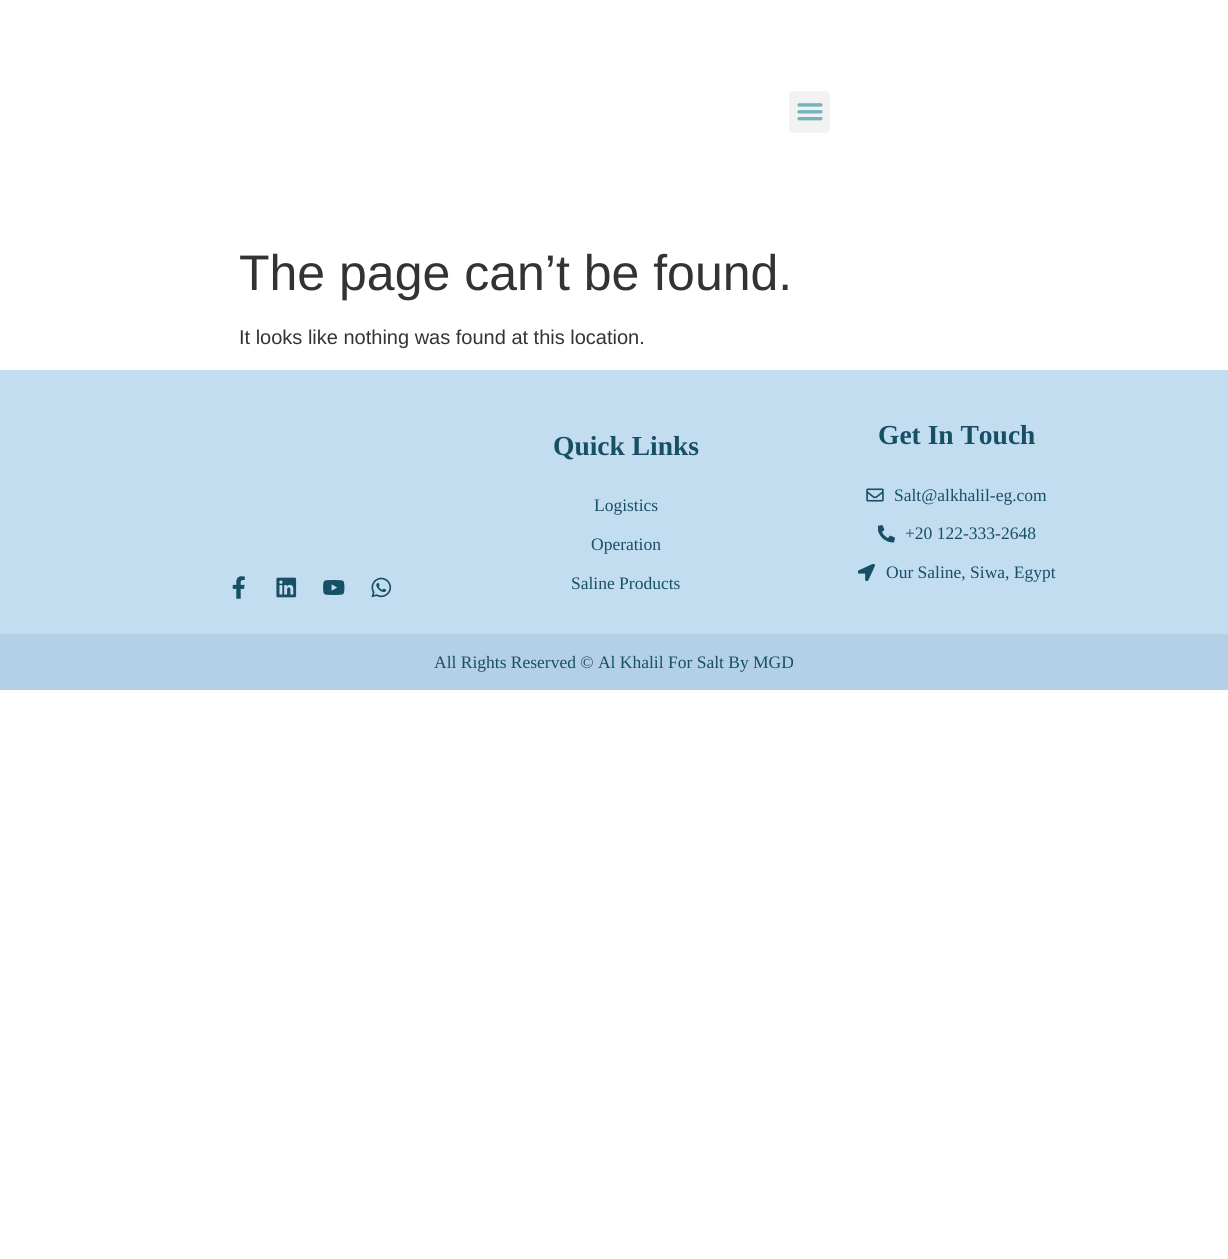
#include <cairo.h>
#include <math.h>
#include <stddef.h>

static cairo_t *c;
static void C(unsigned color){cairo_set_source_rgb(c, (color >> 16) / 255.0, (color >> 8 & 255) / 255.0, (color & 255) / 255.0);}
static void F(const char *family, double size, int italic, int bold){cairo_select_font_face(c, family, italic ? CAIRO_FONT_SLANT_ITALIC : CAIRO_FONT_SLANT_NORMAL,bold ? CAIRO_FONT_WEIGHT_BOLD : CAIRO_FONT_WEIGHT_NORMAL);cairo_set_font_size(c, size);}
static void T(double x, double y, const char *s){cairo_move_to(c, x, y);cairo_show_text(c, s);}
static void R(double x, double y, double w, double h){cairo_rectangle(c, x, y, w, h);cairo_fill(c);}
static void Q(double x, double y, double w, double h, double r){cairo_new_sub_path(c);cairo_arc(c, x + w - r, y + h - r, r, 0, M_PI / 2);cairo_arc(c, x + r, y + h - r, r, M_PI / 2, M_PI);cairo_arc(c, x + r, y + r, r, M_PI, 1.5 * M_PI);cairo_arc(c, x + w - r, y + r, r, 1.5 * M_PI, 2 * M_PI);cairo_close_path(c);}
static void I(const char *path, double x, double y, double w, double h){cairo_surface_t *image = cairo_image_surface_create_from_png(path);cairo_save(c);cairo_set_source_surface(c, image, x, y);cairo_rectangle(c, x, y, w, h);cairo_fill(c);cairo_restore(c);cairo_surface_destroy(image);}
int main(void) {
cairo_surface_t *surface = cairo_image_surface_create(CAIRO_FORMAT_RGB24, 1228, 1259);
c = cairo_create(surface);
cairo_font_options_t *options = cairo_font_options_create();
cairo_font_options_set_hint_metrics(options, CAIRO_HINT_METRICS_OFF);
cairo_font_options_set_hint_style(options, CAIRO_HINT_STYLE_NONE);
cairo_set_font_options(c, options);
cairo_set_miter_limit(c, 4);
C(0xffffff);
cairo_paint(c);
C(0xf2f2f2);
Q(789,91,41,42,4);
cairo_fill(c);
I("1.png",797,103,26,18);
F("Liberation Sans",50,0,0);
C(0x333333);
T(239,290,"The page can’t be found.");
F("Liberation Sans",20,0,0);
T(239,344,"It looks like nothing was found at this location.");
C(0xc3ddf0);
R(0,370,1228,264);
I("2.png",232,576,13,23);
I("3.png",276,577,21,21);
I("4.png",323,580,22,15);
I("5.png",371,577,21,21);
F("Liberation Serif",27.5,0,1);
C(0x174f65);
T(553,455,"Quick Links");
F("Liberation Serif",17.5,0,0);
T(594,511,"Logistics");
T(591,550,"Operation");
T(571,589,"Saline Products");
F("Liberation Serif",27.5,0,1);
T(878,444,"Get In Touch");
I("6.png",866,488,18,14);
F("Liberation Serif",17.5,0,0);
T(894,501,"Salt@alkhalil-eg.com");
I("7.png",878,525,17,18);
T(905,539,"+20 122-333-2648");
I("8.png",858,564,17,17);
T(886,578,"Our Saline, Siwa, Egypt");
C(0xb3d0e6);
R(0,634,1228,56);
C(0x174f65);
T(434,668,"All Rights Reserved © Al Khalil For Salt By MGD");
cairo_surface_write_to_png(surface, "o.png");
cairo_font_options_destroy(options);
cairo_destroy(c);
cairo_surface_destroy(surface);
return 0;
}
